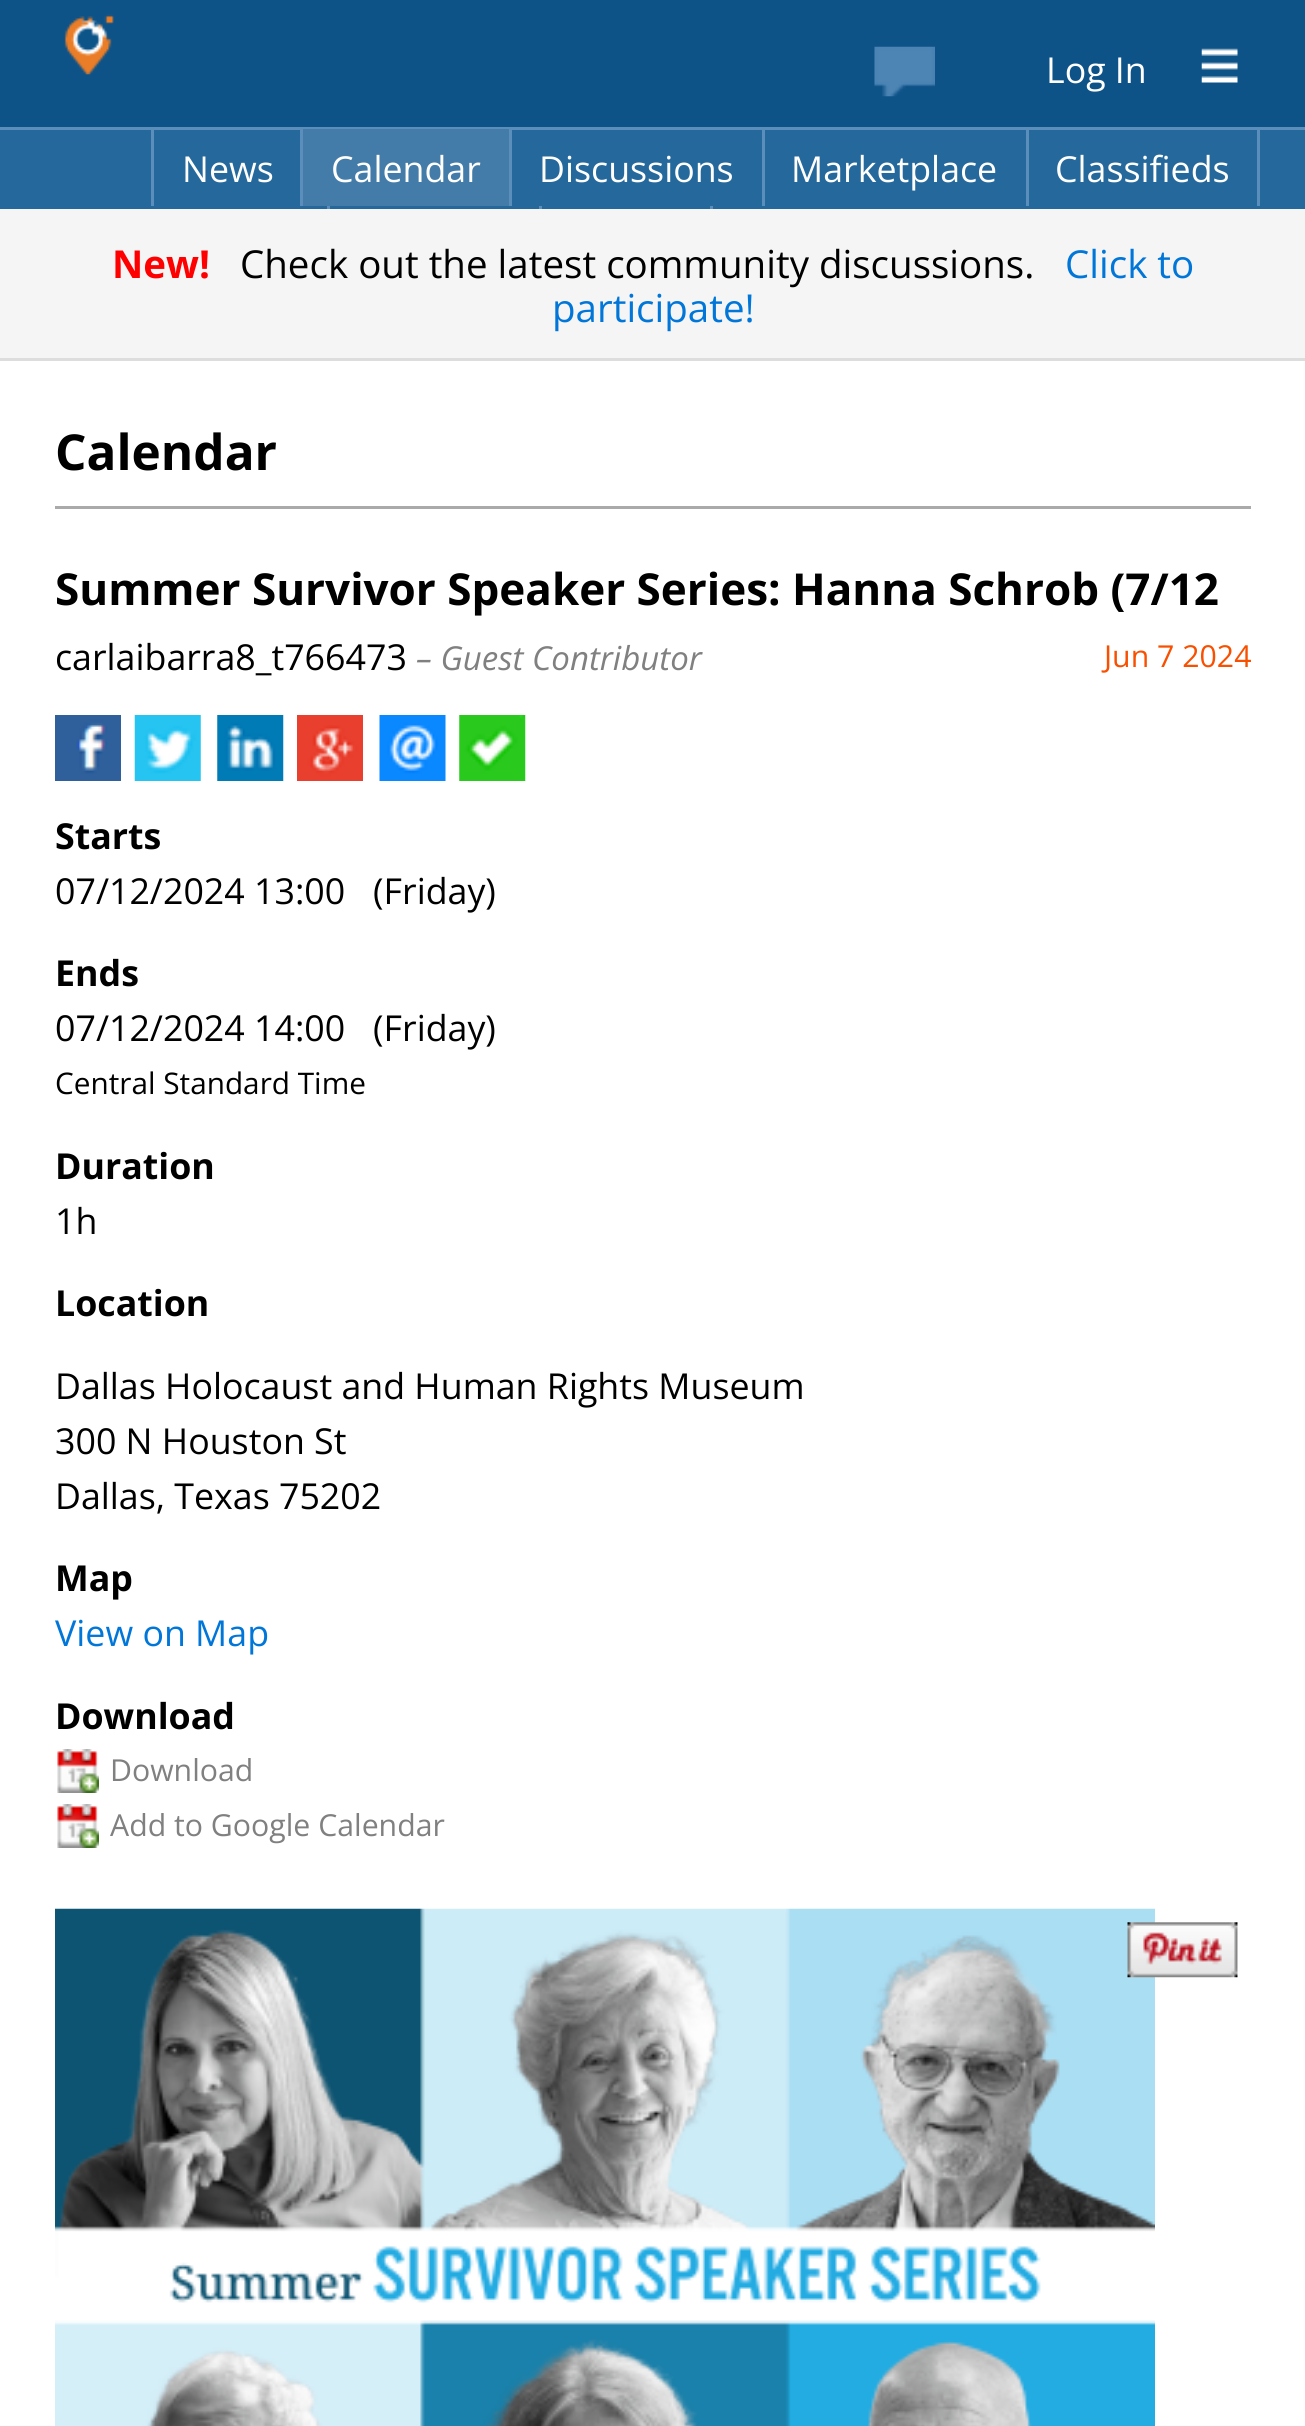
#include <cairo.h>
#include <math.h>
#include <stddef.h>

static cairo_t *c;
static void C(unsigned color){cairo_set_source_rgb(c, (color >> 16) / 255.0, (color >> 8 & 255) / 255.0, (color & 255) / 255.0);}
static void F(const char *family, double size, int italic, int bold){cairo_select_font_face(c, family, italic ? CAIRO_FONT_SLANT_ITALIC : CAIRO_FONT_SLANT_NORMAL,bold ? CAIRO_FONT_WEIGHT_BOLD : CAIRO_FONT_WEIGHT_NORMAL);cairo_set_font_size(c, size);}
static void T(double x, double y, const char *s){cairo_move_to(c, x, y);cairo_show_text(c, s);}
static void R(double x, double y, double w, double h){cairo_rectangle(c, x, y, w, h);cairo_fill(c);}
static void I(const char *path, double x, double y, double w, double h){cairo_surface_t *image = cairo_image_surface_create_from_png(path);cairo_save(c);cairo_set_source_surface(c, image, x, y);cairo_rectangle(c, x, y, w, h);cairo_fill(c);cairo_restore(c);cairo_surface_destroy(image);}
int main(void) {
cairo_surface_t *surface = cairo_image_surface_create(CAIRO_FORMAT_RGB24, 1305, 2426);
c = cairo_create(surface);
cairo_font_options_t *options = cairo_font_options_create();
cairo_font_options_set_hint_metrics(options, CAIRO_HINT_METRICS_OFF);
cairo_font_options_set_hint_style(options, CAIRO_HINT_STYLE_NONE);
cairo_set_font_options(c, options);
cairo_set_miter_limit(c, 4);
C(0xffffff);
cairo_paint(c);
C(0x0e5388);
R(0,0,1305,127);
I("1.png",64,14,50,61);
I("2.png",874,46,61,51);
F("Open Sans",35.75,0,0);
C(0xffffff);
T(1046,83,"Log In");
I("3.png",1201,48,37,35);
C(0x25699c);
R(0,130,1305,79);
C(0x5b8eba);
R(0,127,1305,3);
R(300,129,3,77);
R(151,129,3,77);
C(0xffffff);
T(182,182,"News");
C(0x437ca8);
R(303,129,206,77);
C(0x5b8eba);
R(509,129,3,77);
C(0xffffff);
T(331,182,"Calendar");
C(0x5b8eba);
R(762,129,3,77);
C(0xffffff);
T(539,182,"Discussions");
C(0x5b8eba);
R(1026,129,3,77);
C(0xffffff);
T(791,182,"Marketplace");
C(0x5b8eba);
R(1257,129,3,77);
C(0xffffff);
T(1055,182,"Classifieds");
C(0x5b8eba);
R(327,206,3,3);
R(539,206,3,3);
R(710,206,3,3);
C(0xf5f5f5);
R(0,209,1305,149);
C(0xdddddd);
R(0,358,1305,3);
F("Open Sans",38.5,0,1);
C(0xff0000);
T(112,278,"New!");
F("Open Sans",38.5,0,0);
C(0x000000);
T(240,278,"Check out the latest community discussions.");
C(0x0176d9);
T(1065,278,"Click to");
T(552,322,"participate!");
C(0xaaaaaa);
R(55,506,1196,3);
F("Open Sans",49.5,0,1);
C(0x000000);
T(55,470,"Calendar");
F("Open Sans",44,0,1);
T(55,605,"Summer Survivor Speaker Series: Hanna Schrob (7/12");
F("Open Sans",35.75,0,0);
T(55,670,"carlaibarra8_t766473");
F("Open Sans",33,1,0);
C(0x808080);
T(416,670,"– Guest Contributor");
F("Open Sans",30.25,0,0);
C(0xf85000);
T(1104,667,"Jun 7 2024");
I("4.png",55,715,66,66);
I("5.png",134,715,67,66);
I("6.png",217,715,67,66);
I("7.png",297,715,66,66);
I("8.png",379,715,67,66);
I("9.png",459,715,67,66);
F("Open Sans",35.75,0,1);
C(0x000000);
T(55,849,"Starts");
F("Open Sans",35.75,0,0);
T(55,904,"07/12/2024 13:00   (Friday)");
F("Open Sans",35.75,0,1);
T(55,986,"Ends");
F("Open Sans",35.75,0,0);
T(55,1041,"07/12/2024 14:00   (Friday)");
F("Open Sans",29.75,0,0);
T(55,1094,"Central Standard Time");
F("Open Sans",35.75,0,1);
T(55,1179,"Duration");
F("Open Sans",35.75,0,0);
T(55,1234,"1h");
F("Open Sans",35.75,0,1);
T(55,1316,"Location");
F("Open Sans",35.75,0,0);
T(55,1399,"Dallas Holocaust and Human Rights Museum");
T(55,1454,"300 N Houston St");
T(55,1509,"Dallas, Texas 75202");
F("Open Sans",35.75,0,1);
T(55,1591,"Map");
F("Open Sans",35.75,0,0);
C(0x0176d9);
T(55,1646,"View on Map");
F("Open Sans",35.75,0,1);
C(0x000000);
T(55,1729,"Download");
I("10.png",57,1749,42,44);
F("Open Sans",30.25,0,0);
C(0x808080);
T(110,1781,"Download");
I("10.png",57,1804,42,44);
T(110,1836,"Add to Google Calendar");
I("11.png",55,1908,1100,518);
I("12.png",1127,1922,111,56);
cairo_surface_write_to_png(surface, "o.png");
cairo_font_options_destroy(options);
cairo_destroy(c);
cairo_surface_destroy(surface);
return 0;
}
